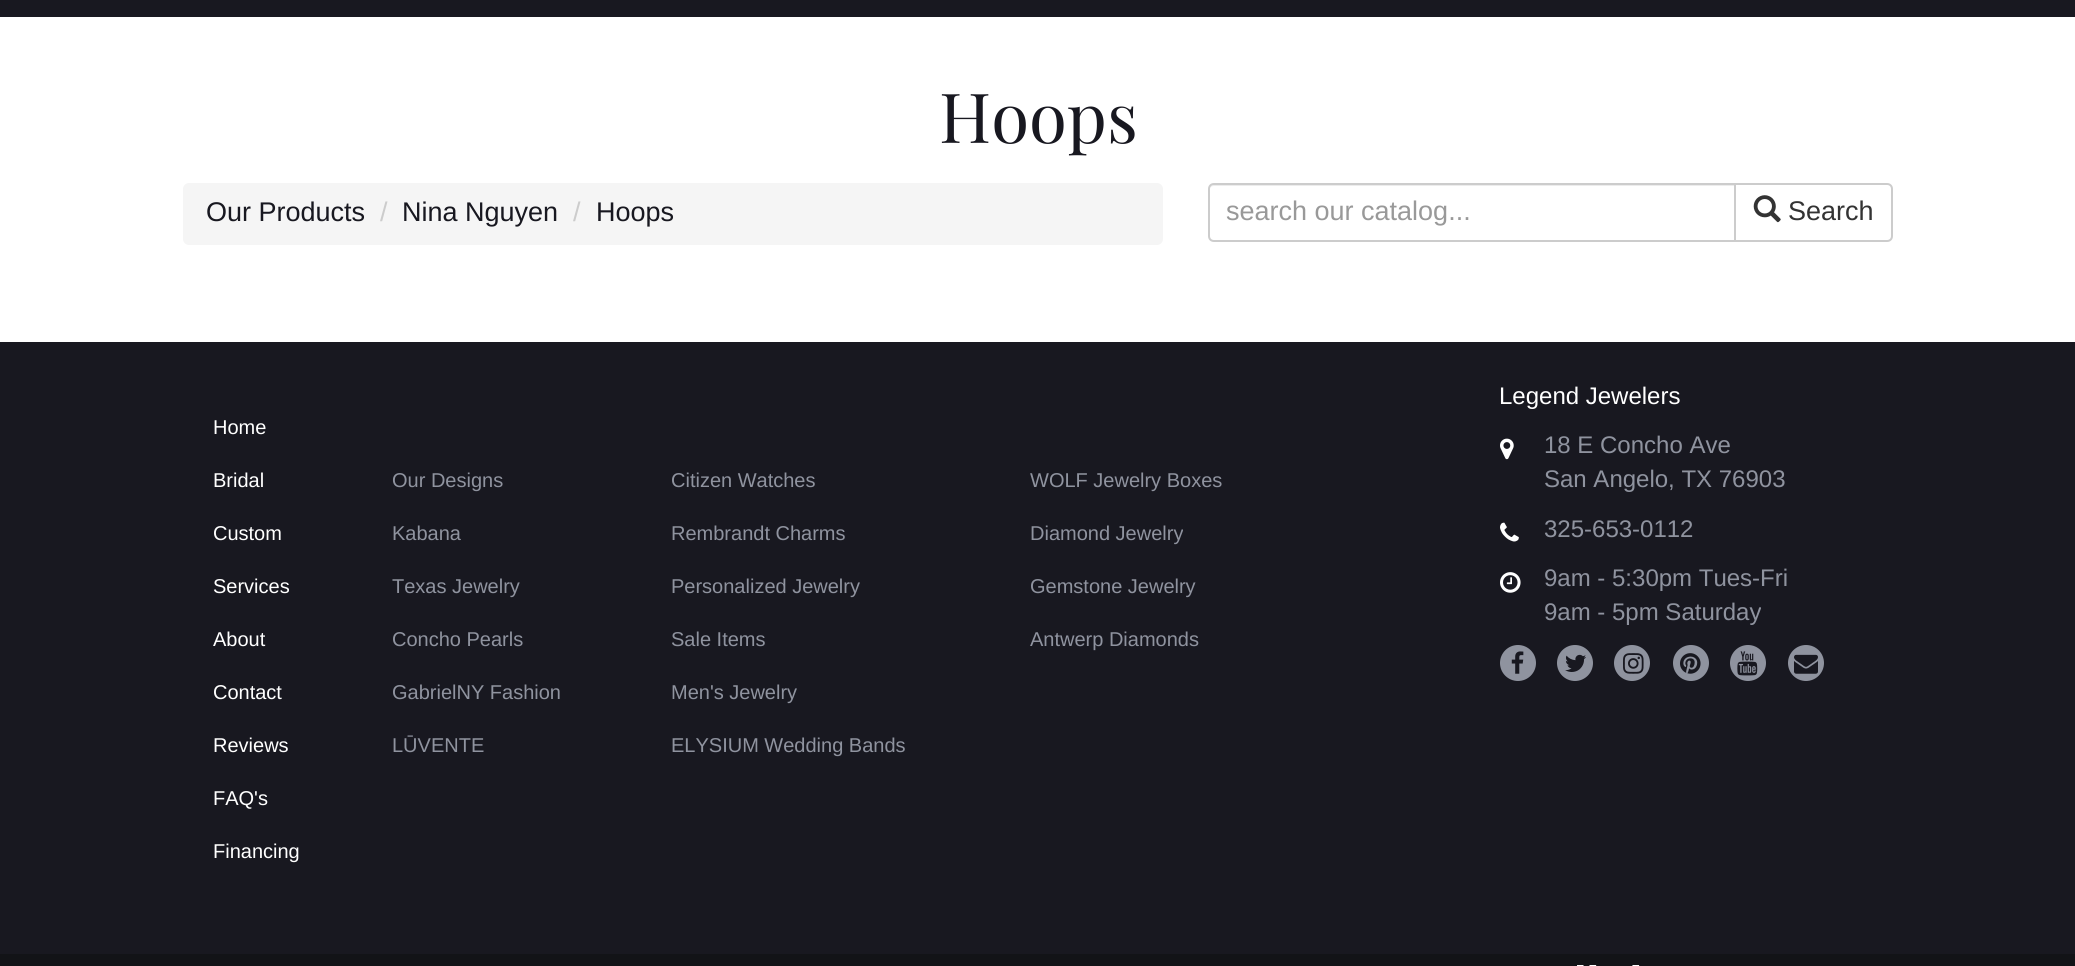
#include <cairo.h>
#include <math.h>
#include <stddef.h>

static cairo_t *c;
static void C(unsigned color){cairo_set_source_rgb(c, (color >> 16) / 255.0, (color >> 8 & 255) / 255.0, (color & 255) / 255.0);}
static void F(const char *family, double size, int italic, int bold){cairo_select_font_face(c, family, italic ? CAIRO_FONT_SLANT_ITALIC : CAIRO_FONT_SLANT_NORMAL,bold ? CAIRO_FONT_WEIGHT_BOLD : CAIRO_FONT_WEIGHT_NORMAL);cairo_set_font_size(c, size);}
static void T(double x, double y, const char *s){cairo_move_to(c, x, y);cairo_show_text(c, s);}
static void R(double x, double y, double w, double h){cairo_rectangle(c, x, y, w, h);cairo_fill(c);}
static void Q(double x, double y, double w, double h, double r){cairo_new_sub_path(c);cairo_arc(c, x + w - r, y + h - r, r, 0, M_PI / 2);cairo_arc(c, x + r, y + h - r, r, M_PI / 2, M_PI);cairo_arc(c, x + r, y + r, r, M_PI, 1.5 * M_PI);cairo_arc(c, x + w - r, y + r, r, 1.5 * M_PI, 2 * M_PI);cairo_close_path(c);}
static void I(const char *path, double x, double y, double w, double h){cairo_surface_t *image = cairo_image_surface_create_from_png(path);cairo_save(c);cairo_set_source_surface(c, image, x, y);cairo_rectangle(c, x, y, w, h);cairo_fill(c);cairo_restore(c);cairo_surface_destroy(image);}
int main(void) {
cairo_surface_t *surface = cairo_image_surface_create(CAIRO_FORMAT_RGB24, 2075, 966);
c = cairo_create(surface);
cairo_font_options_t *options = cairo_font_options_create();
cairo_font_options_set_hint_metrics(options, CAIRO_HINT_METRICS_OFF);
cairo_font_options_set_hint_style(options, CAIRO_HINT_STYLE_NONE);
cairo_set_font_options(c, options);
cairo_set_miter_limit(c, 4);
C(0xffffff);
cairo_paint(c);
C(0x181820);
R(0,0,2075,17);
F("Playfair Display",69,0,0);
T(939,143,"Hoops");
C(0xf5f5f5);
Q(183,183,980,62,6);
cairo_fill(c);
F("Arimo",27,0,0);
C(0x181820);
T(206,221,"Our Products");
C(0xcccccc);
T(380,221,"/");
C(0x181820);
T(402,221,"Nina Nguyen");
C(0xcccccc);
T(573,221,"/");
C(0x181820);
T(596,221,"Hoops");
C(0xececec);
cairo_new_path(c);
cairo_move_to(c,1214,186);
cairo_line_to(c,1734,186);
cairo_line_to(c,1734,185);
cairo_line_to(c,1214,185);
cairo_curve_to(c,1211,185,1209,187,1209,190);
cairo_curve_to(c,1209,188,1211,186,1214,186);
cairo_close_path(c);
cairo_fill(c);
cairo_new_path(c);
cairo_move_to(c,1214,184);
cairo_line_to(c,1735,184);
cairo_line_to(c,1735,241);
cairo_line_to(c,1214,241);
cairo_curve_to(c,1211,241,1209,239,1209,236);
cairo_line_to(c,1209,189);
cairo_curve_to(c,1209,186,1211,184,1214,184);
cairo_close_path(c);
C(0xcccccc);
cairo_stroke(c);
C(0x999999);
T(1226,220,"search our catalog...");
C(0xffffff);
cairo_new_path(c);
cairo_move_to(c,1735,184);
cairo_line_to(c,1887,184);
cairo_curve_to(c,1890,184,1892,186,1892,189);
cairo_line_to(c,1892,236);
cairo_curve_to(c,1892,239,1890,241,1887,241);
cairo_line_to(c,1735,241);
cairo_close_path(c);
cairo_fill_preserve(c);
C(0xcccccc);
cairo_stroke(c);
I("1.png",1753,195,28,28);
C(0x333333);
T(1788,220,"Search");
C(0x181820);
R(0,342,2075,612);
F("Arimo",20,0,0);
C(0xffffff);
T(213,434,"Home");
T(213,487,"Bridal");
T(213,540,"Custom");
T(213,593,"Services");
T(213,646,"About");
T(213,699,"Contact");
T(213,752,"Reviews");
T(213,805,"FAQ's");
T(213,858,"Financing");
C(0x8f939f);
T(392,487,"Our Designs");
T(392,540,"Kabana");
T(392,593,"Texas Jewelry");
T(392,646,"Concho Pearls");
T(392,699,"GabrielNY Fashion");
T(392,752,"LŪVENTE");
T(671,487,"Citizen Watches");
T(671,540,"Rembrandt Charms");
T(671,593,"Personalized Jewelry");
T(671,646,"Sale Items");
T(671,699,"Men's Jewelry");
T(671,752,"ELYSIUM Wedding Bands");
T(1030,487,"WOLF Jewelry Boxes");
T(1030,540,"Diamond Jewelry");
T(1030,593,"Gemstone Jewelry");
T(1030,646,"Antwerp Diamonds");
F("Arimo",24,0,0);
C(0xffffff);
T(1499,404,"Legend Jewelers");
I("2.png",1500,438,14,22);
C(0x8f939f);
T(1544,453,"18 E Concho Ave");
T(1544,487,"San Angelo, TX 76903");
I("3.png",1500,522,19,20);
T(1544,537,"325-653-0112");
I("4.png",1500,572,21,21);
T(1544,586,"9am - 5:30pm Tues-Fri");
T(1544,620,"9am - 5pm Saturday");
cairo_new_path(c);
cairo_arc(c,1518,663,18,0,2 * M_PI);
cairo_fill(c);
I("5.png",1511,651,13,23);
cairo_arc(c,1575,663,18,0,2 * M_PI);
cairo_fill(c);
I("6.png",1565,654,21,18);
cairo_arc(c,1632,663,18,0,2 * M_PI);
cairo_fill(c);
I("7.png",1623,653,21,21);
cairo_arc(c,1691,663,18,0,2 * M_PI);
cairo_fill(c);
I("8.png",1680,653,21,21);
cairo_arc(c,1748,663,18,0,2 * M_PI);
cairo_fill(c);
I("9.png",1737,651,21,25);
cairo_arc(c,1806,663,18,0,2 * M_PI);
cairo_fill(c);
I("10.png",1794,654,24,20);
C(0x121317);
R(0,954,2075,12);
I("11.png",1577,965,63,1);
cairo_surface_write_to_png(surface, "o.png");
cairo_font_options_destroy(options);
cairo_destroy(c);
cairo_surface_destroy(surface);
return 0;
}
